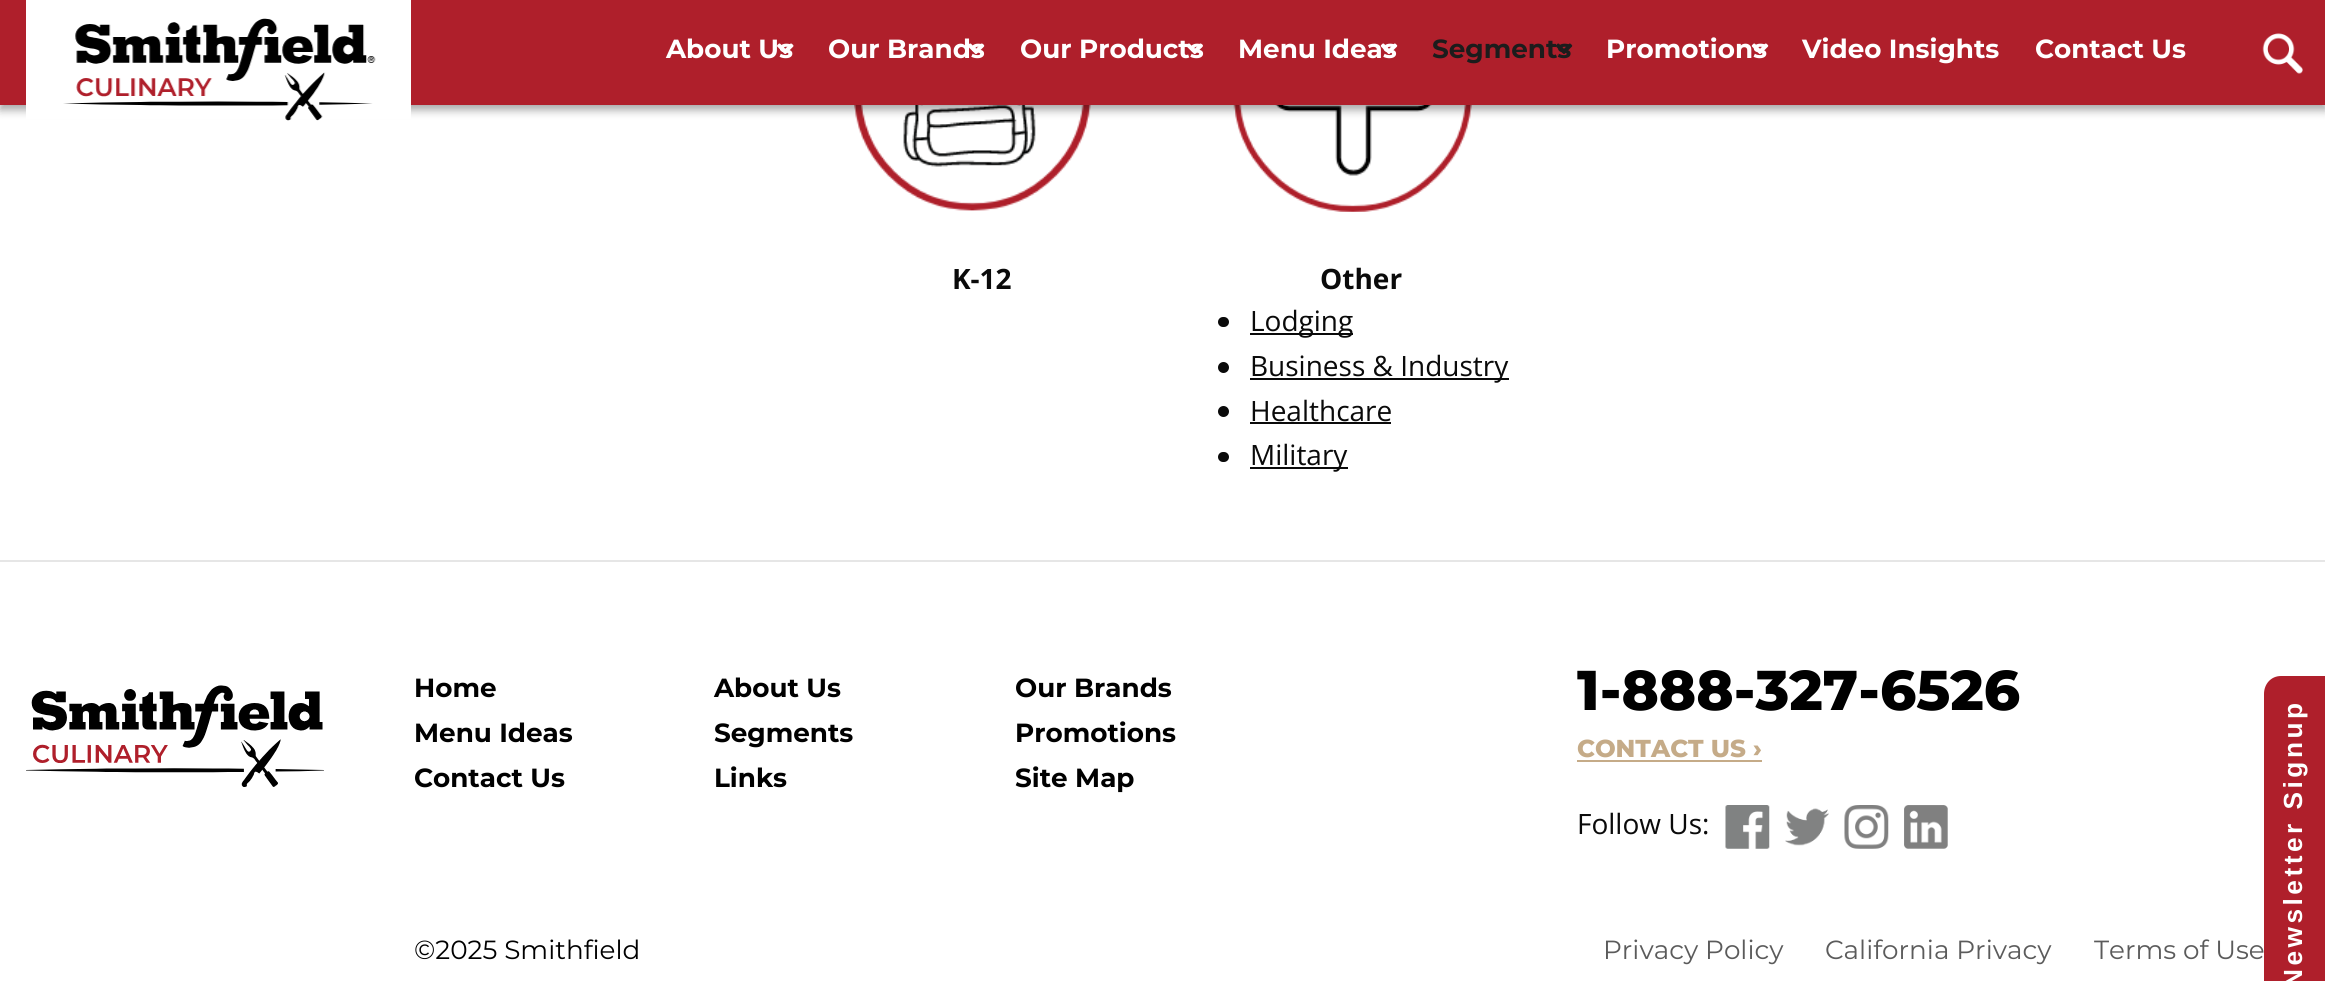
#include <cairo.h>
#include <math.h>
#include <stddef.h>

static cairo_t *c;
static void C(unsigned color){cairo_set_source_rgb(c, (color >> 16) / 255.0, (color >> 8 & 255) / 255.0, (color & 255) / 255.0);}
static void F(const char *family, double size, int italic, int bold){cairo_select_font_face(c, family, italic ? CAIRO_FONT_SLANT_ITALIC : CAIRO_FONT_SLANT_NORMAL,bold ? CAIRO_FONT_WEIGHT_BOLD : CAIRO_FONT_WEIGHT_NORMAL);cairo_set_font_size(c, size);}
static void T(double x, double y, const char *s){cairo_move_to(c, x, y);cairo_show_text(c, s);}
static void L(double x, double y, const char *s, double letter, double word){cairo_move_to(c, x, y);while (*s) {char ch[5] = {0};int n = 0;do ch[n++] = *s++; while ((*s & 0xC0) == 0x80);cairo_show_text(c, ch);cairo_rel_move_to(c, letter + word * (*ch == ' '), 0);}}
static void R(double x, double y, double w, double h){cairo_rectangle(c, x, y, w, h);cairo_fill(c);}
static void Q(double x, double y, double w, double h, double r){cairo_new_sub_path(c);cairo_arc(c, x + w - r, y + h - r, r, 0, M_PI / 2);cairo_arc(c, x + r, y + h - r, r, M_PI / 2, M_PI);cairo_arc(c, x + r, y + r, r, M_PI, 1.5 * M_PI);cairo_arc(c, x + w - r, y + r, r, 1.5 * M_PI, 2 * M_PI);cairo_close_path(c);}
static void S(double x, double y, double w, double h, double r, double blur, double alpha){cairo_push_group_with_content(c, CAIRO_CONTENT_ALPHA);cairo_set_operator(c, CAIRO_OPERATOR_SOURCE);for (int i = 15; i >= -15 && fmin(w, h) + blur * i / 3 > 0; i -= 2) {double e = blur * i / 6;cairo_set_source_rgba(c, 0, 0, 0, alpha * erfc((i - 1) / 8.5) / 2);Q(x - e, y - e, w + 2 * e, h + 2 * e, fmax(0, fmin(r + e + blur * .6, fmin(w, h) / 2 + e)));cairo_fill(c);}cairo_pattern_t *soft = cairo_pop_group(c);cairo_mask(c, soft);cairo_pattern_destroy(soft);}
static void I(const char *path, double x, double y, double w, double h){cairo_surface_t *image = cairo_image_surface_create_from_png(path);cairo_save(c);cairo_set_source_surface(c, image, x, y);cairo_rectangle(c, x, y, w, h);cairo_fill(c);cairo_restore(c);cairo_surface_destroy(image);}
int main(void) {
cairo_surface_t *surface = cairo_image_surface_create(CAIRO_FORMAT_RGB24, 2325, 981);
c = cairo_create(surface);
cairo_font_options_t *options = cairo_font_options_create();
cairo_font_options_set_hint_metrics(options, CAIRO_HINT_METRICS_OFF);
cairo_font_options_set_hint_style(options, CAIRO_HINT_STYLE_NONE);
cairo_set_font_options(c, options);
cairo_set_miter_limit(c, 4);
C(0xffffff);
cairo_paint(c);
I("9.png",854,105,237,106);
I("10.png",1233,105,239,107);
C(0x000000);
S(0,5,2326,105,0,4.5,.35);
C(0xaf1f2b);
R(0,0,2325,105);
C(0xffffff);
R(26,0,385,119);
I("1.png",63,18,313,103);
F("Montserrat",26.25,0,1);
T(666,58,"About Us");
I("2.png",777,43,17,11);
T(828,58,"Our Brands");
I("3.png",968,43,17,11);
T(1020,58,"Our Products");
I("4.png",1187,43,16,11);
T(1238,58,"Menu Ideas");
I("5.png",1380,43,18,11);
C(0x1c1c1c);
T(1432,58,"Segments");
I("6.png",1556,43,17,11);
C(0xffffff);
T(1606,58,"Promotions");
I("7.png",1751,43,18,11);
T(1802,58,"Video Insights");
T(2035,58,"Contact Us");
I("8.png",2262,33,41,41);
F("Open Sans",28,0,1);
C(0x0a0a0a);
T(952,289,"K-12");
T(1320,289,"Other");
Q(1218,317,11,10,5);
cairo_fill(c);
R(1250,333,103,2);
F("Open Sans",28,0,0);
T(1250,331,"Lodging");
cairo_new_path(c);
cairo_arc(c,1223.5,367.5,5.5,0,2 * M_PI);
cairo_fill(c);
R(1250,378,259,2);
T(1250,376,"Business & Industry");
cairo_new_path(c);
cairo_arc(c,1223.5,411.5,5.5,0,2 * M_PI);
cairo_fill(c);
T(1250,421,"Healthcare");
R(1250,422,141,2);
Q(1218,452,11,10,5);
cairo_fill(c);
R(1250,467,98,2);
T(1250,465,"Military");
C(0xe6e6e6);
R(0,560,2325,2);
I("11.png",26,685,298,102);
F("Montserrat",26.25,0,1);
C(0x000000);
T(414,697,"Home");
T(714,697,"About Us");
T(1015,697,"Our Brands");
T(414,742,"Menu Ideas");
T(714,742,"Segments");
T(1015,742,"Promotions");
T(414,787,"Contact Us");
T(714,787,"Links");
T(1015,787,"Site Map");
F("Montserrat ExtraBold",56,0,0);
T(1577,710,"1-888-327-6526");
F("Montserrat ExtraBold",24.5,0,0);
C(0xc5ab88);
T(1577,757,"CONTACT US ›");
R(1577,760,185,2);
F("Open Sans",28,0,0);
C(0x0a0a0a);
T(1577,834,"Follow Us:");
I("12.png",1725,805,45,44);
I("13.png",1785,808,44,38);
I("14.png",1844,805,45,44);
I("15.png",1904,805,44,44);
F("Montserrat",26.25,0,0);
C(0x000000);
T(414,959,"©2025 Smithfield");
C(0x5b5b5b);
T(1603,959,"Privacy Policy");
T(1825,959,"California Privacy");
T(2094,959,"Terms of Use");
C(0xaf1f2b);
cairo_new_path(c);
cairo_move_to(c,2264,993);
cairo_line_to(c,2264,694);
cairo_curve_to(c,2264,684,2271,676,2281,676);
cairo_line_to(c,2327,676);
cairo_line_to(c,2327,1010);
cairo_line_to(c,2281,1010);
cairo_curve_to(c,2271,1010,2264,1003,2264,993);
cairo_close_path(c);
cairo_fill(c);
F("Liberation Sans",26.25,0,1);
C(0xffffff);
cairo_save(c);
cairo_translate(c,2302,988);
cairo_rotate(c,-90 * M_PI / 180);
L(0,0,"Newsletter Signup",3.5,0);
cairo_restore(c);
cairo_surface_write_to_png(surface, "o.png");
cairo_font_options_destroy(options);
cairo_destroy(c);
cairo_surface_destroy(surface);
return 0;
}
